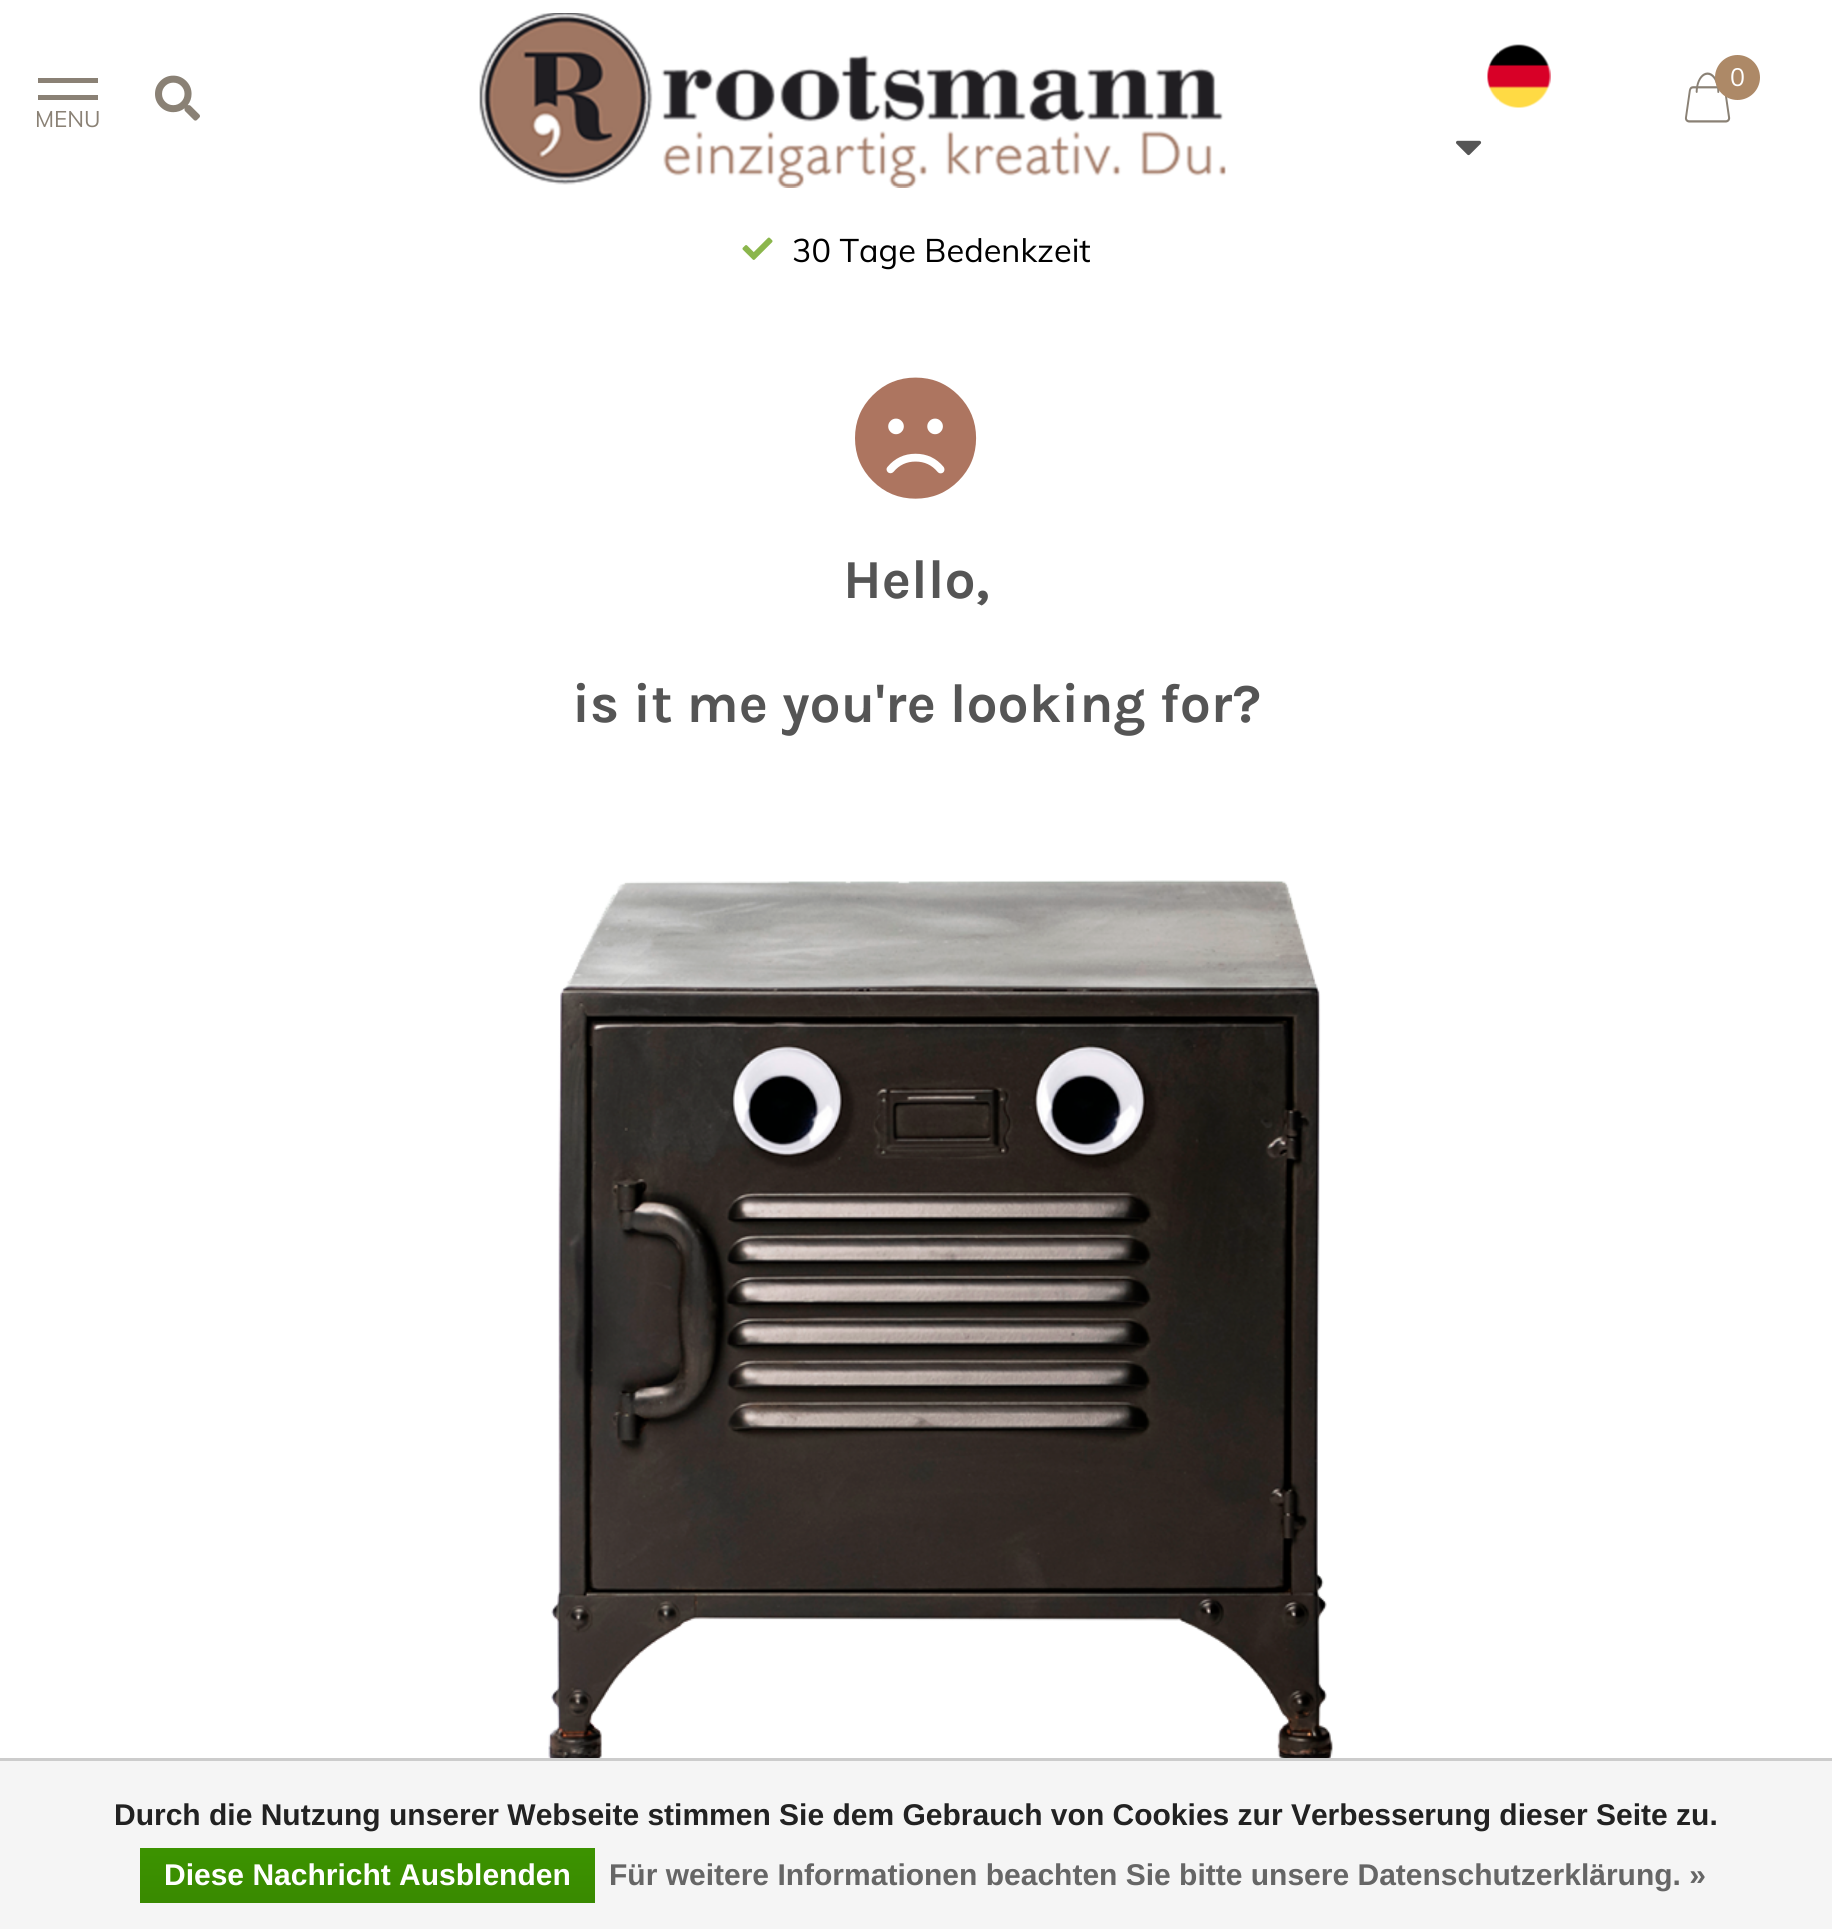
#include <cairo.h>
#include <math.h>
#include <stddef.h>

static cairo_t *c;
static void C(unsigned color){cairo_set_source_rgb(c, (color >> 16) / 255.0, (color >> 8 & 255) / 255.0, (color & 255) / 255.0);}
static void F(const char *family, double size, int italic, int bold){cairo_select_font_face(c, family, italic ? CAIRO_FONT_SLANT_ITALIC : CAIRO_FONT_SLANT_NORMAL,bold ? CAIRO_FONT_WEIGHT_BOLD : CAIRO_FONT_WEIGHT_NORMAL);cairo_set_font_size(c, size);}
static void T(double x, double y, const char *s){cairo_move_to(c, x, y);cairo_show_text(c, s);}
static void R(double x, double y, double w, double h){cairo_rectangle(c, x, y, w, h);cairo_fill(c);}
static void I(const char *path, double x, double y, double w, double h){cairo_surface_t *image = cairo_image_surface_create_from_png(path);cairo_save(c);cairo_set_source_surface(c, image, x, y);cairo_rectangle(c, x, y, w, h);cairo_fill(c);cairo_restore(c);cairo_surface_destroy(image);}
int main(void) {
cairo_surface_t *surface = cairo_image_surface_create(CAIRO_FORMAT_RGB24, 1832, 1929);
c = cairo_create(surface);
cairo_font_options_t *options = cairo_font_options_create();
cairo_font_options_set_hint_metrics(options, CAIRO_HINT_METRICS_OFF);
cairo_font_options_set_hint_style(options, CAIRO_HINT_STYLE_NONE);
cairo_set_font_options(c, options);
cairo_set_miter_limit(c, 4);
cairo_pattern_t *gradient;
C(0xffffff);
cairo_paint(c);
I("1.png",479,13,747,175);
I("2.png",1487,44,64,64);
I("3.png",1456,140,26,16);
I("4.png",1684,72,47,51);
C(0xad8967);
cairo_arc(c,1737.5,77.5,22.5,0,2 * M_PI);
cairo_fill(c);
F("Muli",25,0,0);
C(0xffffff);
T(1730,86,"0");
C(0x8a8175);
R(38,78,60,5);
R(38,95,60,5);
F("Muli",22.5,0,0);
T(35,127,"MENU");
I("5.png",155,75,45,46);
I("6.png",742,237,31,23);
F("Muli",32.5,0,0);
C(0x000000);
T(792,262,"30 Tage Bedenkzeit");
I("7.png",855,377,122,122);
F("Karla",55,0,1);
C(0x555555);
T(843,598,"Hello,");
T(572,722,"is it me you're looking for?");
I("8.png",548,880,785,878);
C(0xf5f5f5);
R(0,1761,1832,168);
C(0xcccccc);
R(0,1758,1832,3);
F("Liberation Sans",30,0,1);
C(0x222222);
T(114,1825,"Durch die Nutzung unserer Webseite stimmen Sie dem Gebrauch von Cookies zur Verbesserung dieser Seite zu.");
gradient = cairo_pattern_create_linear(368,1848,368,1903);
cairo_pattern_add_color_stop_rgba(gradient,0,0.235,0.576,0,1);
cairo_pattern_add_color_stop_rgba(gradient,1,0.224,0.541,0,1);
cairo_set_source(c,gradient);
cairo_pattern_destroy(gradient);
R(140,1848,455,55);
C(0xffffff);
T(164,1885,"Diese Nachricht Ausblenden");
C(0x666666);
T(609,1885,"Für weitere Informationen beachten Sie bitte unsere Datenschutzerklärung. »");
cairo_surface_write_to_png(surface, "o.png");
cairo_font_options_destroy(options);
cairo_destroy(c);
cairo_surface_destroy(surface);
return 0;
}
